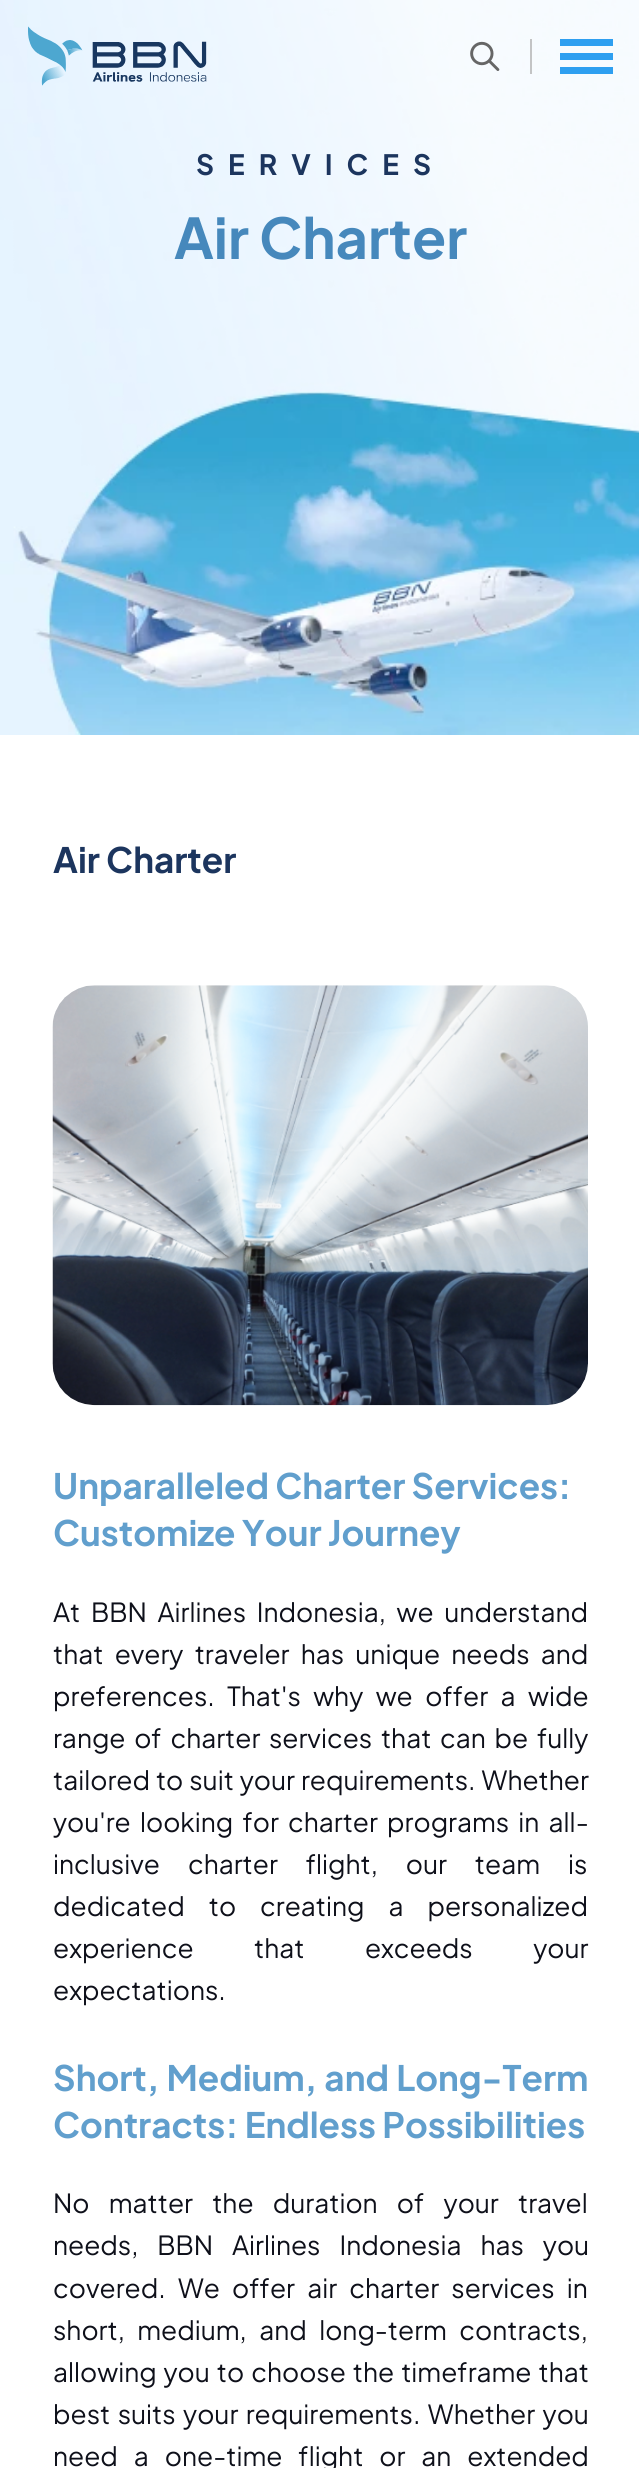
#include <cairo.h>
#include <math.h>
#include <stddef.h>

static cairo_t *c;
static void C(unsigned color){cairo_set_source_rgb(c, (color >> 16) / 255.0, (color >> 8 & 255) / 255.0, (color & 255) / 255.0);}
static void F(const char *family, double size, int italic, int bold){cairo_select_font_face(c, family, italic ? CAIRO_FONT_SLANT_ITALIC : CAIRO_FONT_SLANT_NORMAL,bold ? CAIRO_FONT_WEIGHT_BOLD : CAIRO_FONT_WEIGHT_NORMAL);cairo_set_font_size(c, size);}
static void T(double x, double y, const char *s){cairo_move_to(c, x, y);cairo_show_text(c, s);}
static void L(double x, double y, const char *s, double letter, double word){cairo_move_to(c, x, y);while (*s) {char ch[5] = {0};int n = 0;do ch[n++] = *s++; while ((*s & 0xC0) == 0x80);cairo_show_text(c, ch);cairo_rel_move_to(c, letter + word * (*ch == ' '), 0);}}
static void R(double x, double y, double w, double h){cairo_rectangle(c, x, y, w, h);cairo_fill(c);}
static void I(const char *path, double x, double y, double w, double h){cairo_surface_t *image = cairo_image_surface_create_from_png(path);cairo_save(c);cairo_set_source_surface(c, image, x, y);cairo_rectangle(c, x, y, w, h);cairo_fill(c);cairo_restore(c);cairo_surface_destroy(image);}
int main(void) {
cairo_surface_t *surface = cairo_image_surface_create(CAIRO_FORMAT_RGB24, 639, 2468);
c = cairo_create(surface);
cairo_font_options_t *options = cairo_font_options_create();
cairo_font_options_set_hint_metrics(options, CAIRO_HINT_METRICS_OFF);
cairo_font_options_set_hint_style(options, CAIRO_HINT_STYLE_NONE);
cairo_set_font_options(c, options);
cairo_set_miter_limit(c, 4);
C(0xffffff);
cairo_paint(c);
I("3.png",0,0,639,735);
I("1.png",28,26,179,60);
I("2.png",470,41,30,30);
C(0xc3c4c5);
R(530,39,2,35);
C(0x2e9ff0);
R(560,39,53,7);
R(560,53,53,7);
R(560,67,53,7);
F("Plus Jakarta Sans",28,0,1);
C(0x1c355e);
L(196,175,"SERVICES",14,0);
F("Plus Jakarta Sans",56,0,1);
C(0x4688bc);
T(174,259,"Air Charter");
F("Plus Jakarta Sans",35,0,1);
C(0x1c355e);
T(53,873,"Air Charter");
I("4.png",52,985,536,421);
C(0x619fcd);
T(53,1499,"Unparalleled Charter Services:");
T(53,1546,"Customize Your Journey");
F("Plus Jakarta Sans",26.25,0,0);
C(0x0e101a);
L(53,1622,"At BBN Airlines Indonesia, we understand",0,6.25);
L(53,1664,"that every traveler has unique needs and",0,6.75);
L(53,1706,"preferences. That's why we offer a wide",0,8);
L(53,1748,"range of charter services that can be fully",0,4.25);
L(53,1790,"tailored to suit your requirements. Whether",0,1.5);
L(53,1832,"you're looking for charter programs in all-",0,4.75);
L(53,1874,"inclusive charter flight, our team is",0,23.5);
L(53,1916,"dedicated to creating a personalized",0,19.5);
L(53,1958,"experience that exceeds your",0,56);
T(53,2000,"expectations.");
F("Plus Jakarta Sans",35,0,1);
C(0x619fcd);
L(53,2091,"Short, Medium, and Long-Term",0,1);
T(53,2138,"Contracts: Endless Possibilities");
F("Plus Jakarta Sans",26.25,0,0);
C(0x0e101a);
L(53,2213,"No matter the duration of your travel",0,14.75);
L(53,2255,"needs, BBN Airlines Indonesia has you",0,14.5);
L(53,2298,"covered. We offer air charter services in",0,7.75);
L(53,2340,"short, medium, and long-term contracts,",0,8);
L(53,2382,"allowing you to choose the timeframe that",0,2.5);
L(53,2424,"best suits your requirements. Whether you",0,3);
L(53,2466,"need a one-time flight or an extended",0,11.5);
cairo_surface_write_to_png(surface, "o.png");
cairo_font_options_destroy(options);
cairo_destroy(c);
cairo_surface_destroy(surface);
return 0;
}
